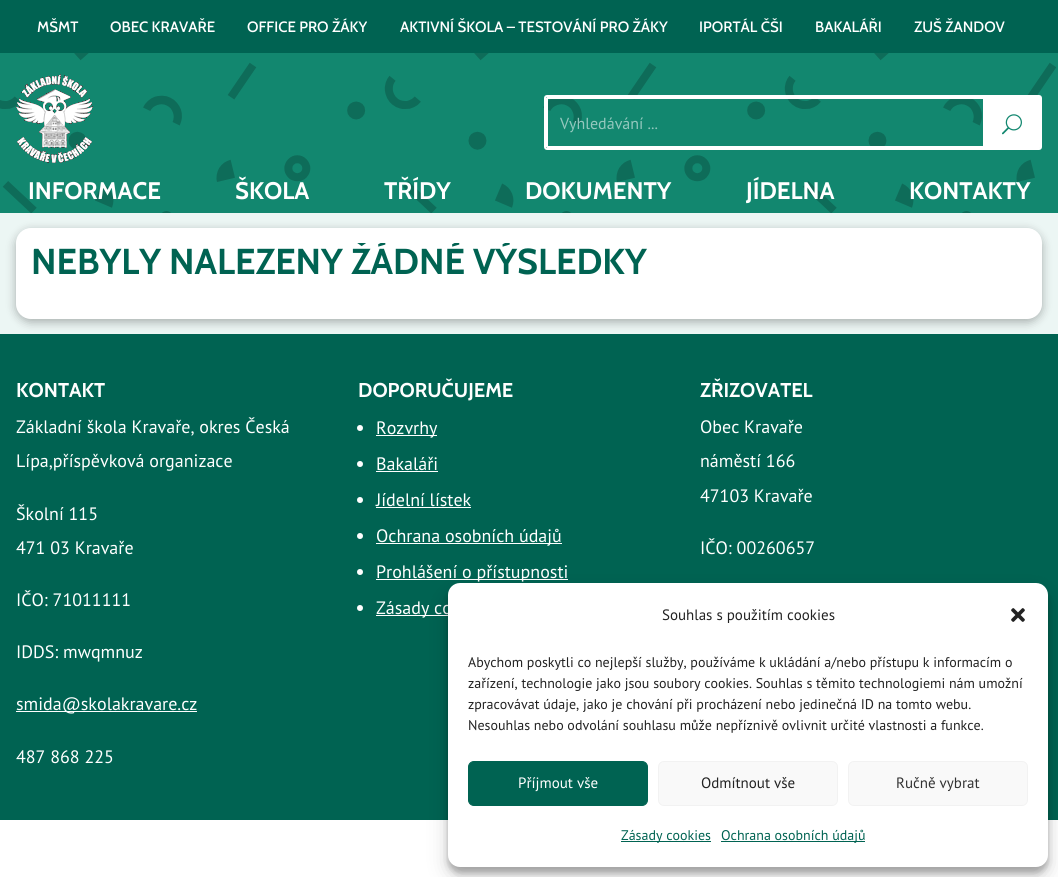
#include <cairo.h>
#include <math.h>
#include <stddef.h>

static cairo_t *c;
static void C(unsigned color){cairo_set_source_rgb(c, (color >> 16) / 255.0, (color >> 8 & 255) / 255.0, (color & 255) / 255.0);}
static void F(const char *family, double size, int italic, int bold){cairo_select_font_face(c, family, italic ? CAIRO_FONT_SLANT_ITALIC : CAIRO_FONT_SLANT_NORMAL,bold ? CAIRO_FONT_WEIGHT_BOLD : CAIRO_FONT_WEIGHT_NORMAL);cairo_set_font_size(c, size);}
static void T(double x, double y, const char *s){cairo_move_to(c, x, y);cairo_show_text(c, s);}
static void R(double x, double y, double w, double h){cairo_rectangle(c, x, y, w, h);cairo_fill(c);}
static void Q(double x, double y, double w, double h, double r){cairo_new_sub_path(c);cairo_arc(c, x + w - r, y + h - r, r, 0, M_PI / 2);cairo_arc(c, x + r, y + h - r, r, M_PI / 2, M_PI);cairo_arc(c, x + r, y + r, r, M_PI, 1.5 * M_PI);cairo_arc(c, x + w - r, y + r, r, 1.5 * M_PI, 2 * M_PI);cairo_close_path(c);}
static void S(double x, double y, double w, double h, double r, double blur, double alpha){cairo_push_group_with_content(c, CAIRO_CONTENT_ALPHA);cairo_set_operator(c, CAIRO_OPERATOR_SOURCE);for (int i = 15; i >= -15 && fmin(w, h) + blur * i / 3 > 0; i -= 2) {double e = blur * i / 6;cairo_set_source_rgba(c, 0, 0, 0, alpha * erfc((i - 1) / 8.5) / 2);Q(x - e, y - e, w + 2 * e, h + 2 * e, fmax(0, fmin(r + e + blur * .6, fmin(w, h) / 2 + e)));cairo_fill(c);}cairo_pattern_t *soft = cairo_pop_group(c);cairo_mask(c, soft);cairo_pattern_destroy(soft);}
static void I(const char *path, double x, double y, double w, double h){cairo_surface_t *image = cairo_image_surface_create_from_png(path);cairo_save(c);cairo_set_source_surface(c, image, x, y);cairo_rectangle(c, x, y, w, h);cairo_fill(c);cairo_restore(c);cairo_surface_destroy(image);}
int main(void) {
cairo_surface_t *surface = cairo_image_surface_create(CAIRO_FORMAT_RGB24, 1058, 877);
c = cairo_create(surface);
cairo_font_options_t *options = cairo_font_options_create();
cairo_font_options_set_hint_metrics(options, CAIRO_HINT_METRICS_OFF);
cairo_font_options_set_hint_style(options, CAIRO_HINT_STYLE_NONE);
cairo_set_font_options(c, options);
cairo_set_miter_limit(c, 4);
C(0xffffff);
cairo_paint(c);
C(0x006352);
R(0,0,1058,53);
F("Cabin Medium",15,0,0);
C(0xffffff);
T(37,32,"MŠMT");
T(110,32,"OBEC KRAVAŘE");
T(247,32,"OFFICE PRO ŽÁKY");
T(400,32,"AKTIVNÍ ŠKOLA – TESTOVÁNÍ PRO ŽÁKY");
T(699,32,"IPORTÁL ČŠI");
T(815,32,"BAKALÁŘI");
T(914,32,"ZUŠ ŽANDOV");
C(0x12876f);
R(0,53,1058,160);
I("1.png",0,53,1056,160);
I("2.png",16,74,77,89);
Q(545,96,496,53,2);
C(0xffffff);
cairo_stroke(c);
cairo_set_fill_rule(c,CAIRO_FILL_RULE_EVEN_ODD);
cairo_new_path(c);
cairo_move_to(c,547,97);
cairo_line_to(c,546,98);
cairo_line_to(c,546,147);
cairo_line_to(c,547,148);
cairo_line_to(c,985,148);
cairo_line_to(c,985,97);
cairo_close_path(c);
cairo_move_to(c,548,99);
cairo_line_to(c,548,146);
cairo_line_to(c,983,146);
cairo_line_to(c,983,99);
cairo_close_path(c);
cairo_fill(c);
F("PT Sans",16,0,0);
C(0x94c8be);
T(560,129,"Vyhledávání ...");
C(0xffffff);
cairo_new_path(c);
cairo_move_to(c,984,97);
cairo_line_to(c,1039,97);
cairo_curve_to(c,1039.5,97,1040,97.5,1040,98);
cairo_line_to(c,1040,147);
cairo_curve_to(c,1040,147.5,1039.5,148,1039,148);
cairo_line_to(c,984,148);
cairo_close_path(c);
cairo_fill(c);
I("3.png",1002,114,20,21);
cairo_new_path(c);
cairo_move_to(c,985,97);
cairo_line_to(c,985,148);
cairo_line_to(c,1039,148);
cairo_curve_to(c,1040,148,1040,148,1040,147);
cairo_line_to(c,1040,98);
cairo_curve_to(c,1040,97,1040,97,1039,97);
cairo_close_path(c);
cairo_move_to(c,987,99);
cairo_line_to(c,987,146);
cairo_line_to(c,1038,146);
cairo_line_to(c,1038,99);
cairo_close_path(c);
cairo_fill(c);
F("Cabin",24,0,1);
T(28,199,"INFORMACE");
T(235,199,"ŠKOLA");
T(384,199,"TŘÍDY");
T(525,199,"DOKUMENTY");
T(746,199,"JÍDELNA");
T(909,199,"KONTAKTY");
C(0xecf6f4);
R(0,213,1058,121);
C(0x000000);
S(16,231,1026,91,15,5,.3);
C(0xffffff);
Q(16,228,1026,91,15);
cairo_fill(c);
cairo_save(c);
cairo_set_fill_rule(c,CAIRO_FILL_RULE_WINDING);
cairo_new_path(c);
cairo_move_to(c,46,243);
cairo_line_to(c,1012,243);
cairo_curve_to(c,1020.5,243,1027,249.5,1027,258);
cairo_line_to(c,1027,289);
cairo_line_to(c,31,289);
cairo_line_to(c,31,258);
cairo_curve_to(c,31,249.5,37.5,243,46,243);
cairo_close_path(c);
cairo_clip(c);
F("Cabin",36,0,1);
C(0x006352);
T(31,274,"NEBYLY NALEZENY ŽÁDNÉ VÝSLEDKY");
cairo_restore(c);
C(0x006352);
R(0,334,1058,486);
F("Cabin",20,0,1);
C(0xffffff);
T(16,397,"KONTAKT");
F("PT Sans",18,0,0);
T(16,433,"Základní škola Kravaře, okres Česká");
T(16,467,"Lípa,příspěvková organizace");
T(16,520,"Školní 115");
T(16,554,"471 03 Kravaře");
T(16,606,"IČO: 71011111");
T(16,658,"IDDS: mwqmnuz");
R(16,711,181,1);
T(16,710,"smida@skolakravare.cz");
T(16,763,"487 868 225");
F("Cabin",20,0,1);
T(358,397,"DOPORUČUJEME");
cairo_new_path(c);
cairo_arc(c,360,428,3,0,2 * M_PI);
cairo_fill(c);
R(376,435,61,1);
F("PT Sans",18,0,0);
T(376,434,"Rozvrhy");
cairo_new_path(c);
cairo_arc(c,360,464,3,0,2 * M_PI);
cairo_fill(c);
T(376,470,"Bakaláři");
R(376,471,62,1);
cairo_new_path(c);
cairo_arc(c,360,500,3,0,2 * M_PI);
cairo_fill(c);
T(376,506,"Jídelní lístek");
R(376,507,95,1);
cairo_new_path(c);
cairo_arc(c,360,536,3,0,2 * M_PI);
cairo_fill(c);
R(376,543,186,1);
T(376,542,"Ochrana osobních údajů");
cairo_new_path(c);
cairo_arc(c,360,572,3,0,2 * M_PI);
cairo_fill(c);
R(376,579,192,1);
T(376,578,"Prohlášení o přístupnosti");
cairo_new_path(c);
cairo_arc(c,360,608,3,0,2 * M_PI);
cairo_fill(c);
R(376,615,72,1);
T(376,614,"Zásady co");
F("Cabin",20,0,1);
T(700,397,"ZŘIZOVATEL");
F("PT Sans",18,0,0);
T(700,433,"Obec Kravaře");
T(700,467,"náměstí 166");
T(700,502,"47103 Kravaře");
T(700,554,"IČO: 00260657");
C(0x000000);
S(448,589,600,284,12,3,.23);
S(448,593,600,284,12,10,.19);
C(0xffffff);
Q(448,583,600,284,12);
cairo_fill(c);
F("PT Sans",15,0,0);
C(0x222222);
T(662,620,"Souhlas s použitím cookies");
I("4.png",1011,608,14,14);
F("PT Sans",14,0,0);
T(468,667,"Abychom poskytli co nejlepší služby, používáme k ukládání a/nebo přístupu k informacím o");
T(468,688,"zařízení, technologie jako jsou soubory cookies. Souhlas s těmito technologiemi nám umožní");
T(468,709,"zpracovávat údaje, jako je chování při procházení nebo jedinečná ID na tomto webu.");
T(468,730,"Nesouhlas nebo odvolání souhlasu může nepříznivě ovlivnit určité vlastnosti a funkce.");
C(0x006352);
Q(468.5,761.5,179,44,5.5);
cairo_fill_preserve(c);
cairo_set_line_width(c,1);
cairo_stroke(c);
F("PT Sans",15,0,0);
C(0xffffff);
T(518,788,"Příjmout vše");
C(0xf9f9f9);
Q(658.5,761.5,179,44,5.5);
cairo_fill_preserve(c);
C(0xf2f2f2);
cairo_stroke(c);
C(0x222222);
T(701,788,"Odmítnout vše");
C(0xf9f9f9);
Q(848.5,761.5,179,44,5.5);
cairo_fill_preserve(c);
C(0xf2f2f2);
cairo_stroke(c);
C(0x333333);
T(896,788,"Ručně vybrat");
C(0x006352);
R(621,841,90,1);
F("PT Sans",14,0,0);
T(621,840,"Zásady cookies");
R(721,841,144,1);
T(721,840,"Ochrana osobních údajů");
cairo_surface_write_to_png(surface, "o.png");
cairo_font_options_destroy(options);
cairo_destroy(c);
cairo_surface_destroy(surface);
return 0;
}
